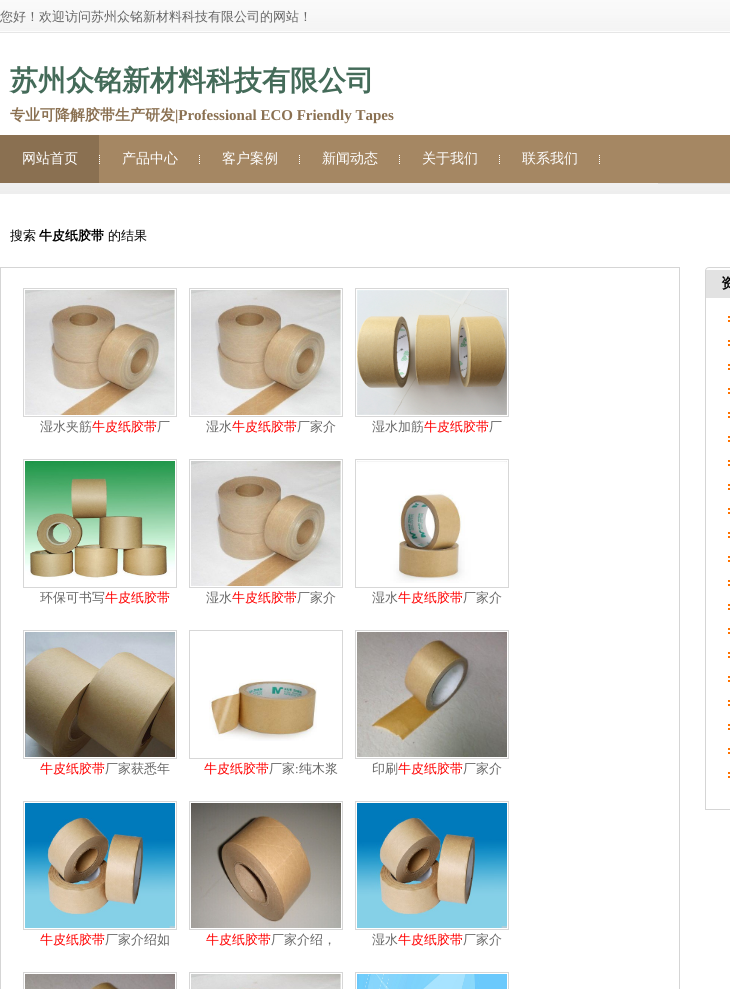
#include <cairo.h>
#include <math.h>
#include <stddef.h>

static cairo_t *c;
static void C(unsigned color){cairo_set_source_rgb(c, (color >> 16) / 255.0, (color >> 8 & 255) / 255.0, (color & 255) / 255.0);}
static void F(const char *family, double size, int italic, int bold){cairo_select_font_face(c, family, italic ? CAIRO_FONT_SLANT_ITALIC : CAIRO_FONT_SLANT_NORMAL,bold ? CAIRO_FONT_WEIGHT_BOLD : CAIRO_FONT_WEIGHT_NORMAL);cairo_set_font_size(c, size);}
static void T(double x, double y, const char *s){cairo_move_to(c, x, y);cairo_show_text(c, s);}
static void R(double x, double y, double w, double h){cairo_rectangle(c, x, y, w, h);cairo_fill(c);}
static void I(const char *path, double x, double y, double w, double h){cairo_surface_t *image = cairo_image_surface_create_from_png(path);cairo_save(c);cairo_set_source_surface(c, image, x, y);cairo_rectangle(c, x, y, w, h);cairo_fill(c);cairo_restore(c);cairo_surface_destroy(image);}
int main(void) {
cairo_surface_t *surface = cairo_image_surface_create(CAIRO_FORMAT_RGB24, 730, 989);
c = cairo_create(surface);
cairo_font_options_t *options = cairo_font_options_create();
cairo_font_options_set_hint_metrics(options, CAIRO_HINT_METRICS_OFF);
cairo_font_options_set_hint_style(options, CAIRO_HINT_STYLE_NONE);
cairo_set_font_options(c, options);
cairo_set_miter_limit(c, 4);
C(0xffffff);
cairo_paint(c);
I("1.png",0,0,730,33);
F("WenQuanYi Zen Hei Medium",13,0,0);
C(0x666666);
T(0,21,"您好！欢迎访问苏州众铭新材料科技有限公司的网站！");
F("WenQuanYi Zen Hei",28,0,1);
C(0x446b59);
T(10,90,"苏州众铭新材料科技有限公司");
F("WenQuanYi Zen Hei",15,0,1);
C(0x8a7051);
T(10,120,"专业可降解胶带生产研发");
F("Liberation Serif",15,0,1);
T(175,120,"|Professional ECO Friendly Tapes");
I("2.png",0,183,730,11);
cairo_rectangle(c,658.5,145.5,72,38);
C(0xdfdfdf);
cairo_set_line_width(c,1);
cairo_stroke(c);
C(0xa58763);
R(99,135,631,48);
I("3.png",99,155,1,9);
C(0x8a7051);
R(0,135,99,48);
F("WenQuanYi Zen Hei Medium",14,0,0);
C(0xffffff);
T(22,163,"网站首页");
I("3.png",199,155,1,9);
T(122,163,"产品中心");
I("3.png",299,155,1,9);
T(222,163,"客户案例");
I("3.png",399,155,1,9);
T(322,163,"新闻动态");
I("3.png",499,155,1,9);
T(422,163,"关于我们");
I("3.png",599,155,1,9);
T(522,163,"联系我们");
F("WenQuanYi Zen Hei Medium",13,0,0);
C(0x000000);
T(10,240,"搜索");
F("WenQuanYi Zen Hei",13,0,1);
T(39,240,"牛皮纸胶带");
F("WenQuanYi Zen Hei Medium",13,0,0);
T(108,240,"的结果");
I("4.png",705,267,25,3);
C(0xd5d5d5);
R(705,809,25,1);
R(705,270,1,540);
C(0xe2e2e2);
R(706,270,24,28);
F("WenQuanYi Zen Hei",14,0,1);
C(0x000000);
T(721,288,"资");
I("5.png",728,316,2,6);
I("5.png",728,340,2,6);
I("5.png",728,364,2,6);
I("5.png",728,388,2,6);
I("5.png",728,412,2,6);
I("5.png",728,436,2,6);
I("5.png",728,460,2,6);
I("5.png",728,484,2,6);
I("5.png",728,508,2,6);
I("5.png",728,532,2,6);
I("5.png",728,556,2,6);
I("5.png",728,580,2,6);
I("5.png",728,604,2,6);
I("5.png",728,628,2,6);
I("5.png",728,652,2,6);
I("5.png",728,676,2,6);
I("5.png",728,700,2,6);
I("5.png",728,724,2,6);
I("5.png",728,748,2,6);
I("5.png",728,772,2,6);
cairo_rectangle(c,.5,267.5,679,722);
C(0xd5d5d5);
cairo_stroke(c);
cairo_rectangle(c,23.5,288.5,153,128);
C(0xd7d7d7);
cairo_stroke(c);
I("6.png",25,290,150,125);
F("WenQuanYi Zen Hei Medium",13,0,0);
C(0x666666);
T(40,431,"湿水夹筋");
C(0xff0000);
T(92,431,"牛皮纸胶带");
C(0x666666);
T(157,431,"厂");
cairo_rectangle(c,189.5,288.5,153,128);
C(0xd7d7d7);
cairo_stroke(c);
I("7.png",191,290,150,125);
C(0x666666);
T(206,431,"湿水");
C(0xff0000);
T(232,431,"牛皮纸胶带");
C(0x666666);
T(297,431,"厂家介");
cairo_rectangle(c,355.5,288.5,153,128);
C(0xd7d7d7);
cairo_stroke(c);
I("8.png",357,290,150,125);
C(0x666666);
T(372,431,"湿水加筋");
C(0xff0000);
T(424,431,"牛皮纸胶带");
C(0x666666);
T(489,431,"厂");
cairo_rectangle(c,23.5,459.5,153,128);
C(0xd7d7d7);
cairo_stroke(c);
I("9.png",25,461,150,119);
C(0x666666);
T(40,602,"环保可书写");
C(0xff0000);
T(105,602,"牛皮纸胶带");
cairo_rectangle(c,189.5,459.5,153,128);
C(0xd7d7d7);
cairo_stroke(c);
I("10.png",191,461,150,125);
C(0x666666);
T(206,602,"湿水");
C(0xff0000);
T(232,602,"牛皮纸胶带");
C(0x666666);
T(297,602,"厂家介");
cairo_rectangle(c,355.5,459.5,153,128);
C(0xd7d7d7);
cairo_stroke(c);
I("11.png",357,461,150,122);
C(0x666666);
T(372,602,"湿水");
C(0xff0000);
T(398,602,"牛皮纸胶带");
C(0x666666);
T(463,602,"厂家介");
cairo_rectangle(c,23.5,630.5,153,128);
C(0xd7d7d7);
cairo_stroke(c);
I("12.png",25,632,150,125);
C(0xff0000);
T(40,773,"牛皮纸胶带");
C(0x666666);
T(105,773,"厂家获悉年");
cairo_rectangle(c,189.5,630.5,153,128);
C(0xd7d7d7);
cairo_stroke(c);
I("13.png",209,679,108,62);
C(0xff0000);
T(204,773,"牛皮纸胶带");
C(0x666666);
T(269,773,"厂家 纯木浆");
F("Liberation Serif",13,0,0);
T(295,773,":");
cairo_rectangle(c,355.5,630.5,153,128);
C(0xd7d7d7);
cairo_stroke(c);
I("14.png",357,632,150,125);
F("WenQuanYi Zen Hei Medium",13,0,0);
C(0x666666);
T(372,773,"印刷");
C(0xff0000);
T(398,773,"牛皮纸胶带");
C(0x666666);
T(463,773,"厂家介");
cairo_rectangle(c,23.5,801.5,153,128);
C(0xd7d7d7);
cairo_stroke(c);
I("15.png",25,803,150,125);
C(0xff0000);
T(40,944,"牛皮纸胶带");
C(0x666666);
T(105,944,"厂家介绍如");
cairo_rectangle(c,189.5,801.5,153,128);
C(0xd7d7d7);
cairo_stroke(c);
I("16.png",191,803,150,125);
C(0xff0000);
T(206,944,"牛皮纸胶带");
C(0x666666);
T(271,944,"厂家介绍，");
cairo_rectangle(c,355.5,801.5,153,128);
C(0xd7d7d7);
cairo_stroke(c);
I("17.png",357,803,150,125);
C(0x666666);
T(372,944,"湿水");
C(0xff0000);
T(398,944,"牛皮纸胶带");
C(0x666666);
T(463,944,"厂家介");
cairo_rectangle(c,23.5,972.5,153,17);
C(0xd7d7d7);
cairo_stroke(c);
I("18.png",25,974,150,15);
cairo_rectangle(c,189.5,972.5,153,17);
cairo_stroke(c);
I("19.png",191,974,150,15);
cairo_rectangle(c,355.5,972.5,153,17);
cairo_stroke(c);
I("20.png",357,974,150,15);
cairo_surface_write_to_png(surface, "o.png");
cairo_font_options_destroy(options);
cairo_destroy(c);
cairo_surface_destroy(surface);
return 0;
}
